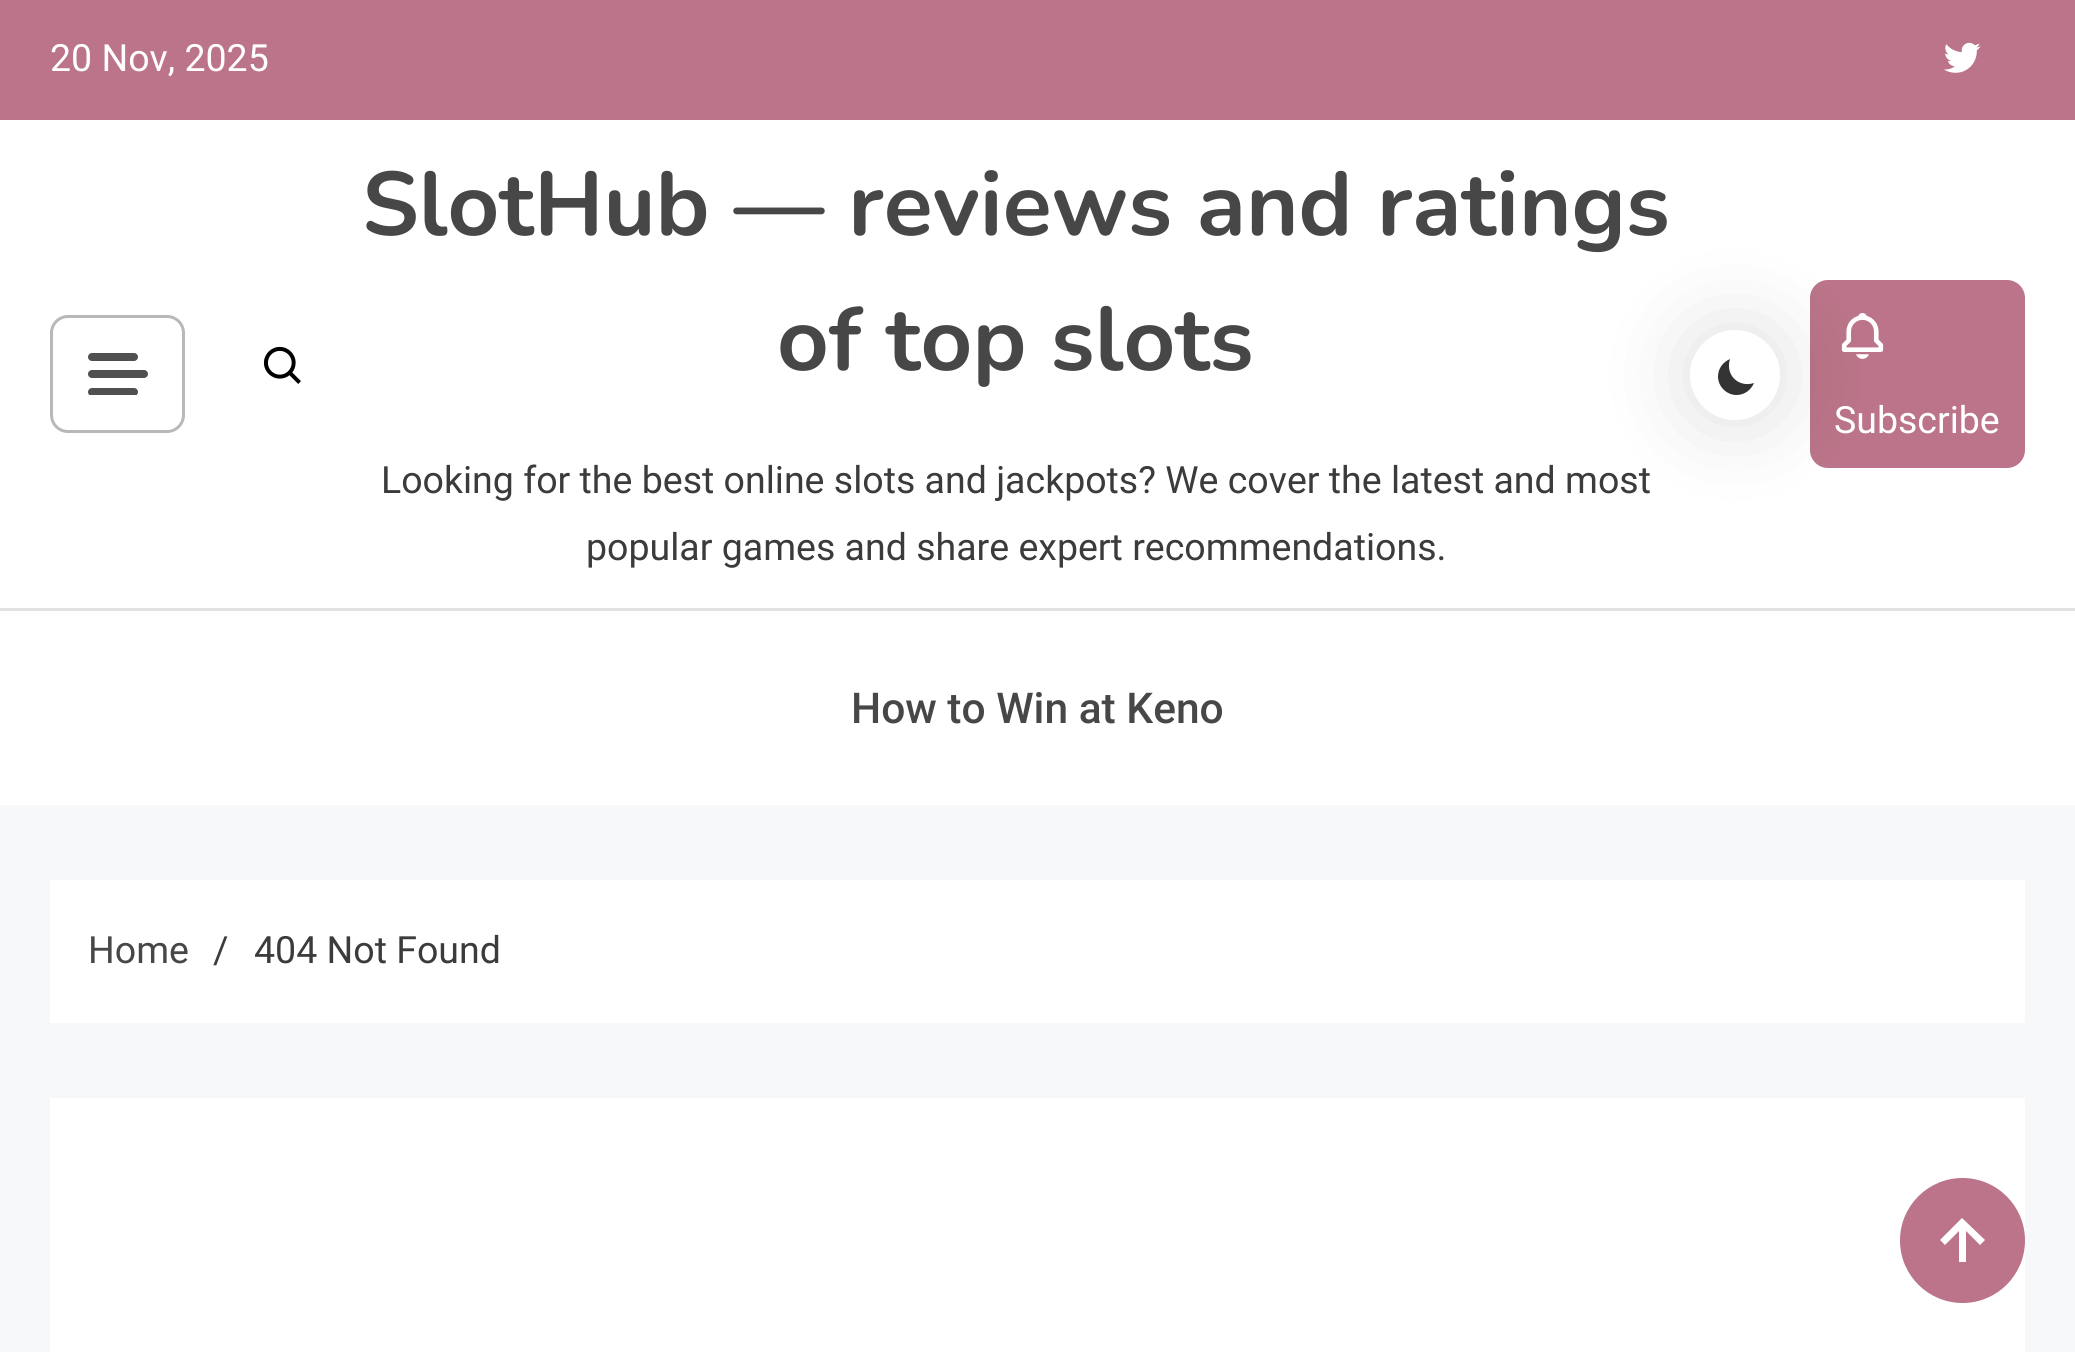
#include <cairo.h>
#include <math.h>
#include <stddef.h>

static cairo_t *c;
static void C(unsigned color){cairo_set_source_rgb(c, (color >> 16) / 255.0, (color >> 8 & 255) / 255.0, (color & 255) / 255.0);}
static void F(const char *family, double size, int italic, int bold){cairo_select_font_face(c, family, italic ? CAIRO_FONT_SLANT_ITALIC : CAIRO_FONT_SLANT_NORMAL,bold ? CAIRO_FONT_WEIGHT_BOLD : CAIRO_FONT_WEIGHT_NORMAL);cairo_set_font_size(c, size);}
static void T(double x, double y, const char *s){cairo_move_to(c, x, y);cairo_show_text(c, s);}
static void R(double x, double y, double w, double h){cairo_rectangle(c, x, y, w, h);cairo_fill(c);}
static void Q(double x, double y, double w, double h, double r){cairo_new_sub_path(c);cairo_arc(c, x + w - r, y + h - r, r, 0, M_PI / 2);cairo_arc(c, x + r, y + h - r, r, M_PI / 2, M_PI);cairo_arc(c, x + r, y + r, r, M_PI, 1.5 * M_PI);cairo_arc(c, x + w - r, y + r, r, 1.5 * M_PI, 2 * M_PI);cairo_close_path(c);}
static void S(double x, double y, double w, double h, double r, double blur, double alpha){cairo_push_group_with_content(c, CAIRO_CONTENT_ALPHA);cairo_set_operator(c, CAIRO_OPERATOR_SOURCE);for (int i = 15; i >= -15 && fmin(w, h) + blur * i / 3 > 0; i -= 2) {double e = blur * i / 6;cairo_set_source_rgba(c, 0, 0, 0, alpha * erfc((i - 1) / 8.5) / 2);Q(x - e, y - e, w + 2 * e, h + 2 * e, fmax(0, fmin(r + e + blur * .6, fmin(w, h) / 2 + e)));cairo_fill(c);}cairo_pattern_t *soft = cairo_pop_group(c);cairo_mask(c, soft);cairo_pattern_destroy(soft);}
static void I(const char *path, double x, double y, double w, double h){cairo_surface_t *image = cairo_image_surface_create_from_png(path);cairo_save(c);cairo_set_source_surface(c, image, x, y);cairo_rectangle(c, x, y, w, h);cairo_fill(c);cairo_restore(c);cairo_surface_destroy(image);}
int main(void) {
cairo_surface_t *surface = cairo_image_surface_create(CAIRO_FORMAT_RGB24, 2075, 1352);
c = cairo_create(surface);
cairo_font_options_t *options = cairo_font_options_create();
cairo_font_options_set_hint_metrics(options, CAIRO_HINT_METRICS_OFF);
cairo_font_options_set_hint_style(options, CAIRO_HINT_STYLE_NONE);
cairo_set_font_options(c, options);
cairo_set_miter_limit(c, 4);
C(0xf7f8f9);
cairo_paint(c);
C(0xbb7489);
R(0,0,2075,120);
F("Roboto",37.5,0,0);
C(0xffffff);
T(50,71,"20 Nov, 2025");
I("1.png",1944,42,37,31);
R(0,120,2075,685);
Q(51.5,316.5,132,115,16.5);
C(0xb9b8b8);
cairo_set_line_width(c,3);
cairo_stroke(c);
C(0x505050);
Q(88,353,50,8,4);
cairo_fill(c);
Q(88,370,60,8,4);
cairo_fill(c);
cairo_save(c);
cairo_rectangle(c,88,353,60,42);
cairo_clip(c);
Q(88,388,50,8,4);
cairo_fill(c);
cairo_restore(c);
I("2.png",263,346,38,38);
F("Nunito",90,0,1);
C(0x484747);
T(362,235,"SlotHub — reviews and ratings");
T(777,370,"of top slots");
F("Roboto",37.5,0,0);
C(0x3b3b3b);
T(381,493,"Looking for the best online slots and jackpots? We cover the latest and most");
T(586,560,"popular games and share expert recommendations.");
C(0xbb7489);
Q(1810,280,215,188,18);
cairo_fill(c);
I("3.png",1841,313,43,46);
C(0x000000);
S(1690,330,90,90,45,44,.13);
C(0xffffff);
cairo_arc(c,1735,375,45,0,2 * M_PI);
cairo_fill(c);
C(0x333333);
cairo_new_path(c);
cairo_move_to(c,1754,383);
cairo_curve_to(c,1738.5,388,1725,375,1730,359);
cairo_curve_to(c,1723,362,1718,368.5,1718,376.5);
cairo_curve_to(c,1718,386.5,1726.5,395,1736.5,395);
cairo_curve_to(c,1744.5,395,1751,390,1754,383);
cairo_close_path(c);
cairo_fill(c);
C(0xffffff);
T(1834,433,"Subscribe");
C(0xe1e1e1);
R(0,608,2075,3);
F("Roboto Medium",42.5,0,0);
C(0x484747);
T(851,723,"How to Win at Keno");
C(0xffffff);
R(50,880,1975,143);
F("Roboto",37.5,0,0);
C(0x484747);
T(88,963,"Home");
C(0x3b3b3b);
T(213,963,"/");
T(254,963,"404 Not Found");
C(0xffffff);
R(50,1098,1975,254);
C(0xbb7489);
cairo_new_path(c);
cairo_arc(c,1962.5,1240.5,62.5,0,2 * M_PI);
cairo_fill(c);
C(0xffffff);
cairo_new_path(c);
cairo_move_to(c,1959,1231);
cairo_line_to(c,1959,1262);
cairo_line_to(c,1966,1262);
cairo_line_to(c,1966,1231);
cairo_line_to(c,1980,1245);
cairo_line_to(c,1985,1240);
cairo_line_to(c,1962,1218);
cairo_line_to(c,1940,1240);
cairo_line_to(c,1945,1245);
cairo_close_path(c);
cairo_fill(c);
cairo_surface_write_to_png(surface, "o.png");
cairo_font_options_destroy(options);
cairo_destroy(c);
cairo_surface_destroy(surface);
return 0;
}
